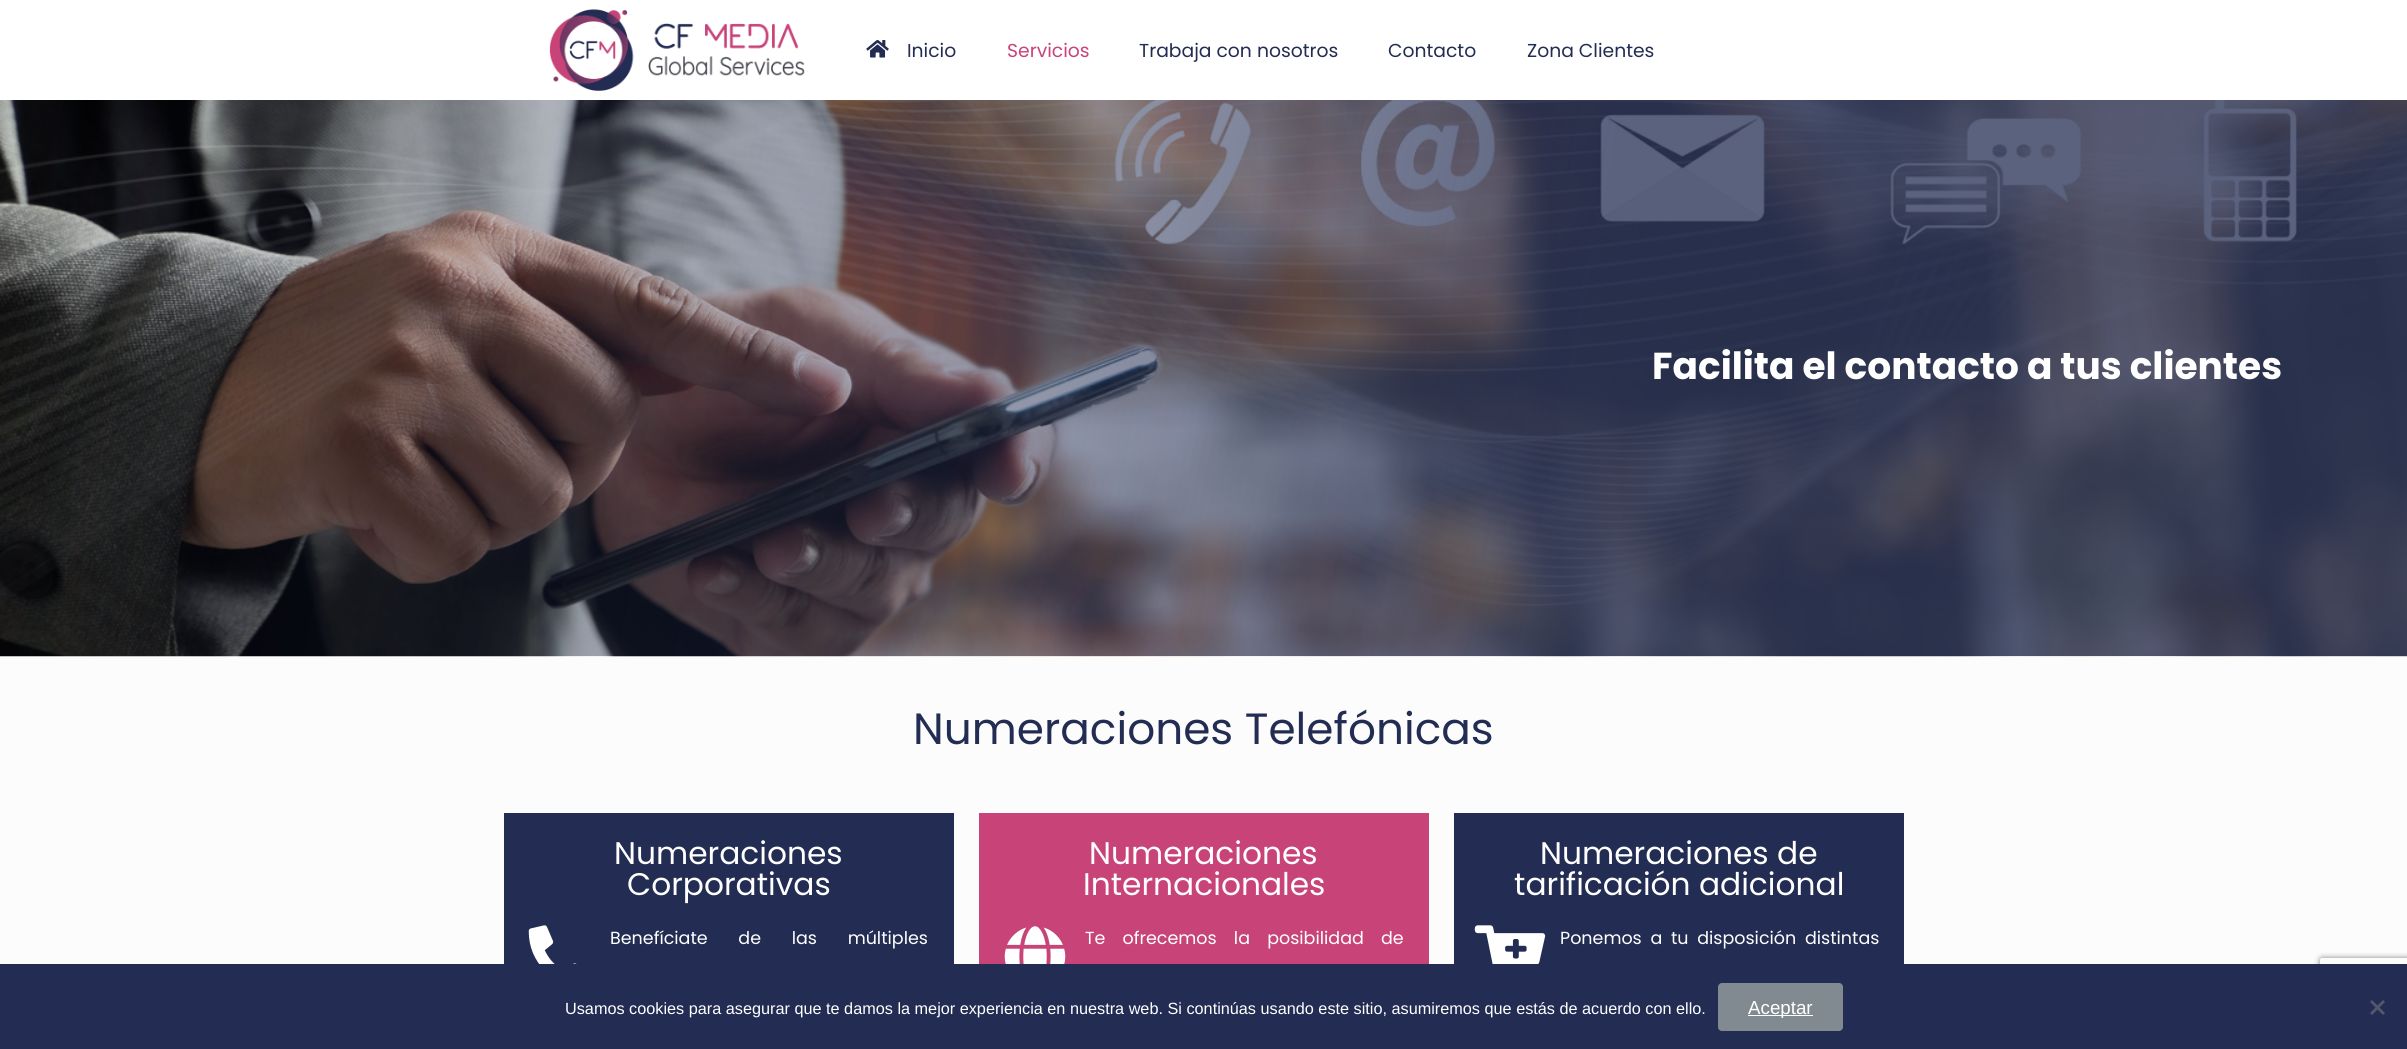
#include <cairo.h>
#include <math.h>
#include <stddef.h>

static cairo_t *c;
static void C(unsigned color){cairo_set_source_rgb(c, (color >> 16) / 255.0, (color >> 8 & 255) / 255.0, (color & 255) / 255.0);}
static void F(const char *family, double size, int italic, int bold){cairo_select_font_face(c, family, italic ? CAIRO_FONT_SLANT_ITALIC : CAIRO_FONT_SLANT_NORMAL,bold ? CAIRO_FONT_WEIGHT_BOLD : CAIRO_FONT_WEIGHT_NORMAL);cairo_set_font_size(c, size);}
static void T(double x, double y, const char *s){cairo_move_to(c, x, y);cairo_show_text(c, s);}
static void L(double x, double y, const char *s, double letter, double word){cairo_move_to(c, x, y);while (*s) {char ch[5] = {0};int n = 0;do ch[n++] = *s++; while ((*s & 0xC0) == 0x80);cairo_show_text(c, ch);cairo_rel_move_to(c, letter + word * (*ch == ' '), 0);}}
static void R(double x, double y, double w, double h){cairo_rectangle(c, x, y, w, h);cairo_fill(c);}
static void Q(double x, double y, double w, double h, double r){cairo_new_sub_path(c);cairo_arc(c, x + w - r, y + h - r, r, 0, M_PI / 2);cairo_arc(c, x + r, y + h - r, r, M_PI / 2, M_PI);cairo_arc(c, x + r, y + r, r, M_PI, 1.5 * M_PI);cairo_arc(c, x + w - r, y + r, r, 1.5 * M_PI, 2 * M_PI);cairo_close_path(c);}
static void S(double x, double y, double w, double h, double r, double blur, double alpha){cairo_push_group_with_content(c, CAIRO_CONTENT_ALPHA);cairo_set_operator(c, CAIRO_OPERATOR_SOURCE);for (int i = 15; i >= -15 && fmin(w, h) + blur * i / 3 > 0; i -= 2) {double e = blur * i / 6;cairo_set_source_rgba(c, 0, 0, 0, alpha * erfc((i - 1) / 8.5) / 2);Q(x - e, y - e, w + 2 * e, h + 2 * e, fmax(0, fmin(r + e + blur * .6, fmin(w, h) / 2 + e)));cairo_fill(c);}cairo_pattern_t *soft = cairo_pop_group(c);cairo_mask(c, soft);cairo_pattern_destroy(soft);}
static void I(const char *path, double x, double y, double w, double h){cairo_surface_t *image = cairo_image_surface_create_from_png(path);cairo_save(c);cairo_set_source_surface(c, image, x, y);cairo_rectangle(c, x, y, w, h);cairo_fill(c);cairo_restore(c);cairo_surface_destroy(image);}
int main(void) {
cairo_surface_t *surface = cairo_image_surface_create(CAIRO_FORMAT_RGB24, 2407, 1049);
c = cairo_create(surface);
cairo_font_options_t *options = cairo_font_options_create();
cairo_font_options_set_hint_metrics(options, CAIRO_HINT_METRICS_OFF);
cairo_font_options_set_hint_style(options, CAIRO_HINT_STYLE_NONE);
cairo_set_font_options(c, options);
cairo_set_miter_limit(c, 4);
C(0xfcfcfc);
cairo_paint(c);
C(0xffffff);
R(0,0,2407,100);
I("1.png",549,9,256,82);
I("2.png",866,40,23,18);
F("Poppins",18.75,0,0);
C(0x232d53);
T(907,57,"Inicio");
C(0xc84478);
T(1007,57,"Servicios");
C(0x232d53);
T(1139,57,"Trabaja con nosotros");
T(1388,57,"Contacto");
T(1527,57,"Zona Clientes");
I("3.png",0,100,2407,557);
F("Poppins",37.5,0,1);
C(0xffffff);
T(1652,379,"Facilita el contacto a tus clientes");
F("Poppins",43.75,0,0);
C(0x232d53);
T(913,744,"Numeraciones Telefónicas");
R(504,813,450,151);
F("Poppins",31.25,0,0);
C(0xffffff);
T(614,864,"Numeraciones");
T(627,895,"Corporativas");
I("4.png",528,925,49,39);
F("Poppins",17.5,0,0);
L(610,944,"Benefíciate de las múltiples",0,26);
C(0xc84478);
R(979,813,450,151);
F("Poppins",31.25,0,0);
C(0xffffff);
T(1089,864,"Numeraciones");
T(1083,895,"Internacionales");
I("5.png",1004,926,62,38);
F("Poppins",17.5,0,0);
L(1085,944,"Te ofrecemos la posibilidad de",0,12.5);
C(0x232d53);
R(1454,813,450,151);
F("Poppins",31.25,0,0);
C(0xffffff);
T(1540,864,"Numeraciones de");
T(1514,895,"tarificación adicional");
I("6.png",1474,925,72,39);
F("Poppins",17.5,0,0);
L(1560,944,"Ponemos a tu disposición distintas",0,4);
cairo_save(c);
cairo_set_fill_rule(c,CAIRO_FILL_RULE_EVEN_ODD);
cairo_new_path(c);
cairo_move_to(c,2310,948);
cairo_line_to(c,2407,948);
cairo_line_to(c,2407,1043);
cairo_line_to(c,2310,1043);
cairo_close_path(c);
cairo_move_to(c,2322.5,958);
cairo_line_to(c,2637.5,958);
cairo_curve_to(c,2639,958,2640,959,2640,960.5);
cairo_line_to(c,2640,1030.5);
cairo_curve_to(c,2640,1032,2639,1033,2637.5,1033);
cairo_line_to(c,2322.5,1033);
cairo_curve_to(c,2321,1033,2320,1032,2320,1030.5);
cairo_line_to(c,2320,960.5);
cairo_curve_to(c,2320,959,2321,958,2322.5,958);
cairo_close_path(c);
cairo_clip(c);
C(0x808080);
S(2320,958,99,75,2.5,3,1);
cairo_restore(c);
C(0x232d53);
R(0,964,2407,85);
F("Liberation Sans",16.25,0,0);
C(0xffffff);
T(565,1014,"Usamos cookies para asegurar que te damos la mejor experiencia en nuestra web. Si continúas usando este sitio, asumiremos que estás de acuerdo con ello.");
C(0x818a91);
Q(1718,983,125,48,4);
cairo_fill(c);
C(0xffffff);
R(1748,1015,65,1);
F("Liberation Sans",18.75,0,0);
T(1748,1014,"Aceptar");
C(0x52576a);
cairo_new_path(c);
cairo_move_to(c,2383,1000);
cairo_line_to(c,2385,1002);
cairo_line_to(c,2372,1015);
cairo_line_to(c,2370,1013);
cairo_close_path(c);
cairo_fill(c);
cairo_new_path(c);
cairo_move_to(c,2370,1002);
cairo_line_to(c,2372,1000);
cairo_line_to(c,2385,1013);
cairo_line_to(c,2383,1015);
cairo_close_path(c);
cairo_fill(c);
cairo_surface_write_to_png(surface, "o.png");
cairo_font_options_destroy(options);
cairo_destroy(c);
cairo_surface_destroy(surface);
return 0;
}
